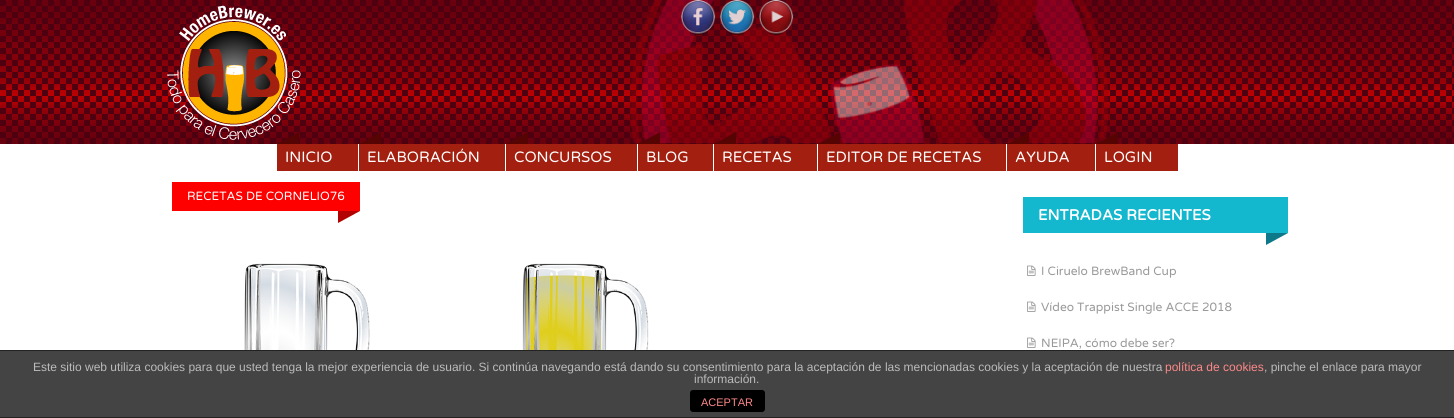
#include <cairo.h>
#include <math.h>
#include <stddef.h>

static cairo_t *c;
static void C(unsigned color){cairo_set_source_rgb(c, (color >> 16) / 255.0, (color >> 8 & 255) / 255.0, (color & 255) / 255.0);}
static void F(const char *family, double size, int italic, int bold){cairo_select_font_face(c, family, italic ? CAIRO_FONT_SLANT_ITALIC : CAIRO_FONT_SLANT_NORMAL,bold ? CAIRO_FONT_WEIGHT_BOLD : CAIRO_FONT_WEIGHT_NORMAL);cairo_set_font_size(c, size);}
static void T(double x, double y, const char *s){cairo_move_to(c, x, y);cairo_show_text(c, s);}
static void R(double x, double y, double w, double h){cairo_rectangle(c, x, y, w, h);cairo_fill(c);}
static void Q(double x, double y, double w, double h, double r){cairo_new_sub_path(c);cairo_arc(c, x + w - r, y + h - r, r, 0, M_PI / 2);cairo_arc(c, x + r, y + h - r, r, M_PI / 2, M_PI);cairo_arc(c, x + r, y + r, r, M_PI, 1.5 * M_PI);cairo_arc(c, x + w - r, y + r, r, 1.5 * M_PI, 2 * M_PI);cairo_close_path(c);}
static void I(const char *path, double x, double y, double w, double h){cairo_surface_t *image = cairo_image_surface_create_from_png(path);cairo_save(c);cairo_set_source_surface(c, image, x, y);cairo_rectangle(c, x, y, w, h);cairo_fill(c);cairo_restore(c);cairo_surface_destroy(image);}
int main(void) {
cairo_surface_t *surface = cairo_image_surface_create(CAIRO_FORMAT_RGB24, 1454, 418);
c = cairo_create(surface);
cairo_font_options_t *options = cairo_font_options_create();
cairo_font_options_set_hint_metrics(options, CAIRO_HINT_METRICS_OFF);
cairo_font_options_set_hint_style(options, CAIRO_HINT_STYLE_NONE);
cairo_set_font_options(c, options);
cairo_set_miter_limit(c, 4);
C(0xffffff);
cairo_paint(c);
I("1.png",0,0,1454,144);
I("2.png",630,0,479,143);
I("3.png",167,5,134,135);
I("4.png",681,0,35,35);
I("5.png",720,0,35,36);
I("6.png",759,0,35,35);
C(0xa31f0f);
R(277,144,81,27);
C(0x560303);
cairo_new_path(c);
cairo_move_to(c,299,144);
cairo_line_to(c,277,144);
cairo_line_to(c,299,132);
cairo_close_path(c);
cairo_fill(c);
F("Varela Round",15,0,0);
C(0xffffff);
T(285,162,"INICIO");
C(0xa31f0f);
R(359,144,146,27);
C(0x560303);
cairo_new_path(c);
cairo_move_to(c,381,144);
cairo_line_to(c,359,144);
cairo_line_to(c,381,132);
cairo_close_path(c);
cairo_fill(c);
C(0xffffff);
T(367,162,"ELABORACIÓN");
C(0xa31f0f);
R(506,144,131,27);
C(0x560303);
cairo_new_path(c);
cairo_move_to(c,528,144);
cairo_line_to(c,506,144);
cairo_line_to(c,528,132);
cairo_close_path(c);
cairo_fill(c);
C(0xffffff);
T(514,162,"CONCURSOS");
C(0xa31f0f);
R(638,144,75,27);
C(0x560303);
cairo_new_path(c);
cairo_move_to(c,660,144);
cairo_line_to(c,638,144);
cairo_line_to(c,660,132);
cairo_close_path(c);
cairo_fill(c);
C(0xffffff);
T(646,162,"BLOG");
C(0xa31f0f);
R(714,144,103,27);
C(0x560303);
cairo_new_path(c);
cairo_move_to(c,736,144);
cairo_line_to(c,714,144);
cairo_line_to(c,736,132);
cairo_close_path(c);
cairo_fill(c);
C(0xffffff);
T(722,162,"RECETAS");
C(0xa31f0f);
R(818,144,188,27);
C(0x560303);
cairo_new_path(c);
cairo_move_to(c,840,144);
cairo_line_to(c,818,144);
cairo_line_to(c,840,132);
cairo_close_path(c);
cairo_fill(c);
C(0xffffff);
T(826,162,"EDITOR DE RECETAS");
C(0xa31f0f);
R(1007,144,88,27);
C(0x560303);
cairo_new_path(c);
cairo_move_to(c,1029,144);
cairo_line_to(c,1007,144);
cairo_line_to(c,1029,132);
cairo_close_path(c);
cairo_fill(c);
C(0xffffff);
T(1015,162,"AYUDA");
C(0xa31f0f);
R(1096,144,82,27);
C(0x560303);
cairo_new_path(c);
cairo_move_to(c,1118,144);
cairo_line_to(c,1096,144);
cairo_line_to(c,1118,132);
cairo_close_path(c);
cairo_fill(c);
C(0xffffff);
T(1104,162,"LOGIN");
C(0xff0000);
R(172,182,188,29);
F("Varela Round",12,0,0);
C(0xffffff);
T(187,200,"RECETAS DE CORNELIO76");
C(0xb30000);
cairo_new_path(c);
cairo_move_to(c,338,211);
cairo_line_to(c,360,211);
cairo_line_to(c,338,223);
cairo_close_path(c);
cairo_fill(c);
I("7.png",243,263,127,87);
C(0xdfce1c);
R(524,275,78,75);
I("8.png",445,236,259,114);
C(0x13b7ce);
R(1023,197,265,36);
F("Varela Round",15,0,1);
C(0xffffff);
T(1038,220,"ENTRADAS RECIENTES");
C(0x0d7988);
cairo_new_path(c);
cairo_move_to(c,1266,233);
cairo_line_to(c,1288,233);
cairo_line_to(c,1266,245);
cairo_close_path(c);
cairo_fill(c);
I("9.png",1027,265,9,11);
F("Varela Round",12,0,0);
C(0x999999);
T(1041,275,"I Ciruelo BrewBand Cup");
I("9.png",1027,301,9,11);
T(1041,311,"Vídeo Trappist Single ACCE 2018");
I("9.png",1027,337,9,11);
T(1041,347,"NEIPA, cómo debe ser?");
C(0x444444);
R(0,351,1454,66);
C(0x222222);
R(0,350,1454,1);
R(0,417,1454,1);
F("Liberation Sans",12,0,0);
C(0xbbbbbb);
T(33,371,"Este sitio web utiliza cookies para que usted tenga la mejor experiencia de usuario. Si continúa navegando está dando su consentimiento para la aceptación de las mencionadas cookies y la aceptación de nuestra");
C(0xff8888);
T(1165,371,"política de cookies");
C(0xbbbbbb);
T(1264,371,", pinche el enlace para mayor");
T(694,383,"información.");
C(0x000000);
Q(690,390,75,22,3);
cairo_fill(c);
F("Liberation Sans",11,0,0);
C(0xff8888);
T(701,406,"ACEPTAR");
cairo_surface_write_to_png(surface, "o.png");
cairo_font_options_destroy(options);
cairo_destroy(c);
cairo_surface_destroy(surface);
return 0;
}
